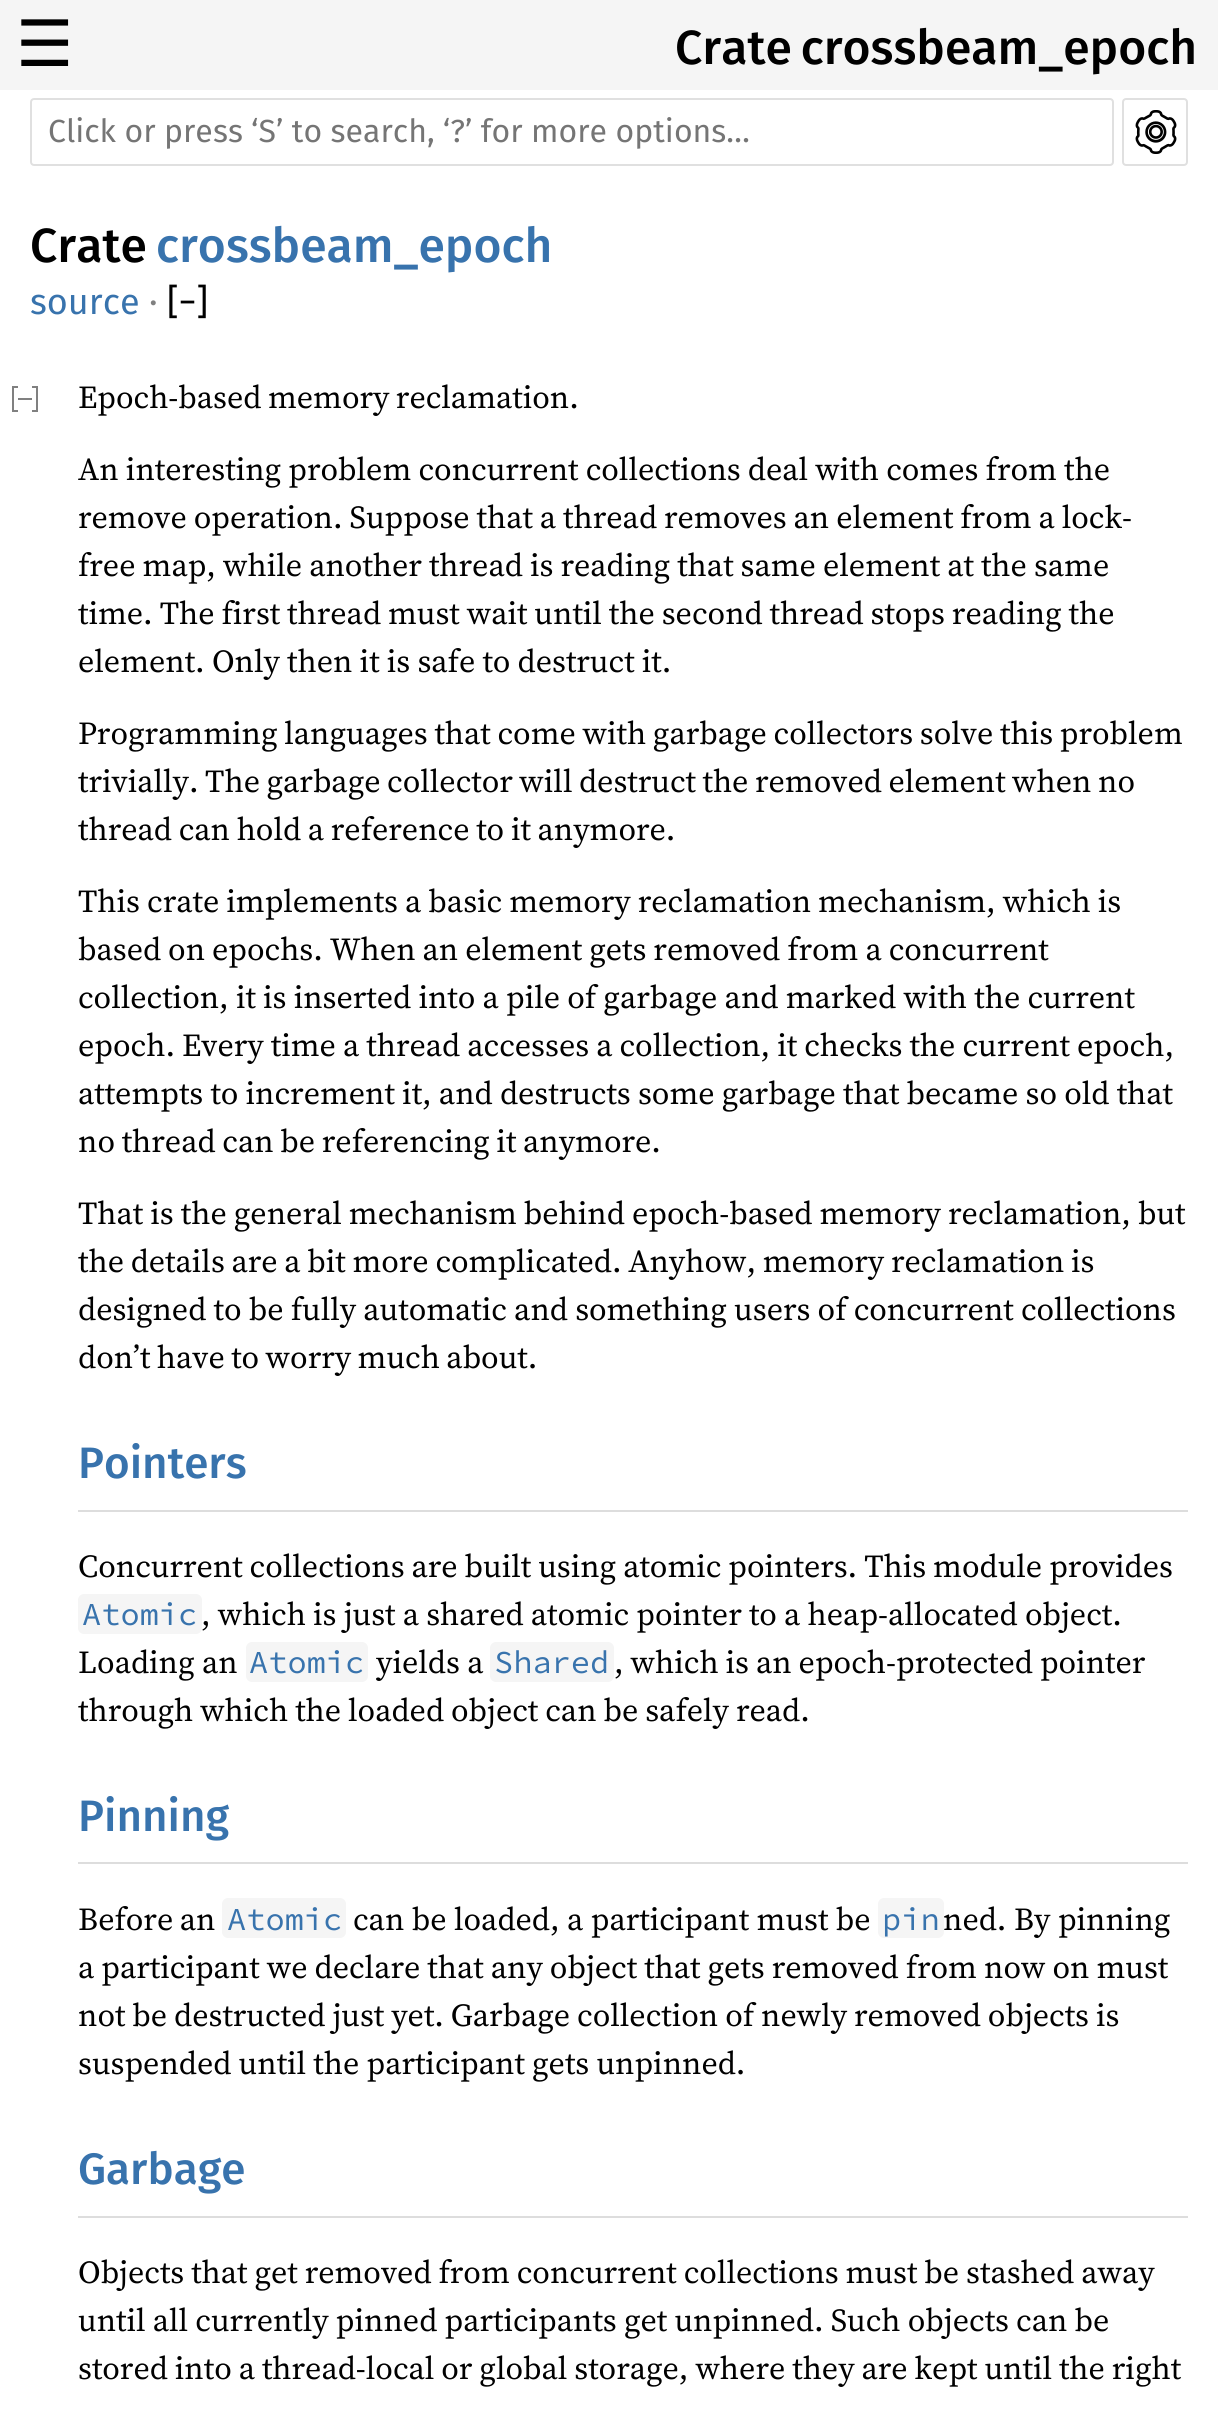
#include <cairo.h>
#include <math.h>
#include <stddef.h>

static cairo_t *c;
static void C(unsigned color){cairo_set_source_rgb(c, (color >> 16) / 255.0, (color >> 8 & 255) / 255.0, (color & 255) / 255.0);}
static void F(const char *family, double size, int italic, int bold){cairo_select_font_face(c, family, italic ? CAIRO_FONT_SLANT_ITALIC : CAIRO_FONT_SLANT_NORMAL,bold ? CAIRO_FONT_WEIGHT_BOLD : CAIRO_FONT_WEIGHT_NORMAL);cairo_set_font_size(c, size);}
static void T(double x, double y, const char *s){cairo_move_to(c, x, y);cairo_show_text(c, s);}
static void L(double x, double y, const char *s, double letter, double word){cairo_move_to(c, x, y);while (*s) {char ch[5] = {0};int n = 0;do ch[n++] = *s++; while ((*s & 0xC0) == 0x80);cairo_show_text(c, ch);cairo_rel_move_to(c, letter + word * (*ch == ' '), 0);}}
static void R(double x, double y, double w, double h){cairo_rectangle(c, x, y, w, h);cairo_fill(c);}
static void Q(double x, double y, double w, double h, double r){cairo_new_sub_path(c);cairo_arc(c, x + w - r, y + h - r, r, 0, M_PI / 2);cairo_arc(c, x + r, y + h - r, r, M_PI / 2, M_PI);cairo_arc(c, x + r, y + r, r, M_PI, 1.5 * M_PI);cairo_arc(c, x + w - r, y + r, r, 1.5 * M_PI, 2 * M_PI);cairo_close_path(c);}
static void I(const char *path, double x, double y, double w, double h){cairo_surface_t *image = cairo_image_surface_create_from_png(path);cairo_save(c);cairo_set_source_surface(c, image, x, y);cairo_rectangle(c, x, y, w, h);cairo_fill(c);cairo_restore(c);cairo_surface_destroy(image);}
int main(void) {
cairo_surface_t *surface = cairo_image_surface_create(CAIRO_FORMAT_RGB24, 1218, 2417);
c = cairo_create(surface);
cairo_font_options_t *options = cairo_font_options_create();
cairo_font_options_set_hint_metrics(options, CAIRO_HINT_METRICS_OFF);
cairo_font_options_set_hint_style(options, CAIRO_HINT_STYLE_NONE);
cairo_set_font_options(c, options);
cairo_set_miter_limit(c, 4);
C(0xffffff);
cairo_paint(c);
C(0xf5f5f5);
R(0,0,1218,90);
F("DejaVu Sans",64,0,0);
C(0x000000);
T(16,66,"☰");
F("Fira Sans Medium",48,0,0);
L(675,64,"Crate crossbeam_epoch",0,-3);
Q(31,99,1082,66,3);
C(0xe0e0e0);
cairo_stroke(c);
F("Fira Sans",32,0,0);
C(0x757575);
T(48,142,"Click or press ‘S’ to search, ‘?’ for more options…");
Q(1123,99,64,66,3);
C(0xe0e0e0);
cairo_stroke(c);
I("1.png",1135,110,42,44);
F("Fira Sans Medium",48,0,0);
C(0x000000);
T(30,262,"Crate");
C(0x3873ad);
T(156,262,"crossbeam_epoch");
F("Fira Sans",36,0,0);
T(30,314,"source");
C(0x808080);
T(149,314,"·");
C(0x000000);
T(167,314,"[−]");
cairo_new_path(c);
cairo_move_to(c,18,387);
cairo_line_to(c,13,387);
cairo_line_to(c,13,411);
cairo_line_to(c,18,411);
cairo_move_to(c,32,387);
cairo_line_to(c,37,387);
cairo_line_to(c,37,411);
cairo_line_to(c,32,411);
cairo_move_to(c,18,399);
cairo_line_to(c,32,399);
C(0x808080);
cairo_stroke(c);
F("Source Serif 4",32,0,0);
C(0x000000);
L(78,408,"Epoch-based memory reclamation.",0,-1);
L(78,480,"An interesting problem concurrent collections deal with comes from the",0,-.25);
L(78,528,"remove operation. Suppose that a thread removes an element from a lock-",0,-.5);
L(78,576,"free map, while another thread is reading that same element at the same",0,-.4);
L(78,624,"time. The first thread must wait until the second thread stops reading the",0,-.5);
L(78,672,"element. Only then it is safe to destruct it.",0,-.25);
L(78,744,"Programming languages that come with garbage collectors solve this problem",0,-.75);
L(78,792,"trivially. The garbage collector will destruct the removed element when no",0,-.9);
L(78,840,"thread can hold a reference to it anymore.",0,-.75);
L(78,912,"This crate implements a basic memory reclamation mechanism, which is",0,-.4);
L(78,960,"based on epochs. When an element gets removed from a concurrent",0,-.5);
L(78,1008,"collection, it is inserted into a pile of garbage and marked with the current",0,-.25);
L(78,1056,"epoch. Every time a thread accesses a collection, it checks the current epoch,",0,-.4);
L(78,1104,"attempts to increment it, and destructs some garbage that became so old that",0,-.25);
L(78,1152,"no thread can be referencing it anymore.",0,-.75);
L(78,1224,"That is the general mechanism behind epoch-based memory reclamation, but",0,-.4);
L(78,1272,"the details are a bit more complicated. Anyhow, memory reclamation is",0,-.75);
L(78,1320,"designed to be fully automatic and something users of concurrent collections",0,-.25);
L(78,1368,"don’t have to worry much about.",0,-1);
C(0xdddddd);
R(78,1510,1110,2);
F("Fira Sans Medium",44,0,0);
C(0x3873ad);
T(78,1478,"Pointers");
F("Source Serif 4",32,0,0);
C(0x000000);
L(78,1577,"Concurrent collections are built using atomic pointers. This module provides",0,-.5);
C(0xf5f5f5);
Q(78,1594,124,40,6);
cairo_fill(c);
F("Source Code Pro",32,0,0);
C(0x3873ad);
T(82,1625,"Atomic");
F("Source Serif 4",32,0,0);
C(0x000000);
L(201,1625,", which is just a shared atomic pointer to a heap-allocated object.",0,-.25);
T(78,1673,"Loading an");
C(0xf5f5f5);
Q(246,1642,122,40,6);
cairo_fill(c);
F("Source Code Pro",32,0,0);
C(0x3873ad);
T(249,1673,"Atomic");
F("Source Serif 4",32,0,0);
C(0x000000);
T(376,1673,"yields a");
C(0xf5f5f5);
Q(490,1642,124,40,6);
cairo_fill(c);
F("Source Code Pro",32,0,0);
C(0x3873ad);
T(494,1673,"Shared");
F("Source Serif 4",32,0,0);
C(0x000000);
L(614,1673,", which is an epoch-protected pointer",0,-.5);
L(78,1721,"through which the loaded object can be safely read.",0,-.5);
C(0xdddddd);
R(78,1862,1110,2);
F("Fira Sans Medium",44,0,0);
C(0x3873ad);
T(78,1831,"Pinning");
F("Source Serif 4",32,0,0);
C(0x000000);
L(78,1930,"Before an",0,-1);
C(0xf5f5f5);
Q(222,1898,124,40,6);
cairo_fill(c);
F("Source Code Pro",32,0,0);
C(0x3873ad);
T(227,1930,"Atomic");
F("Source Serif 4",32,0,0);
C(0x000000);
T(353,1930,"can be loaded, a participant must be");
C(0xf5f5f5);
Q(878,1898,66,40,6);
cairo_fill(c);
F("Source Code Pro",32,0,0);
C(0x3873ad);
T(882,1930,"pin");
F("Source Serif 4",32,0,0);
C(0x000000);
T(943,1930,"ned. By pinning");
L(78,1978,"a participant we declare that any object that gets removed from now on must",0,-.4);
L(78,2026,"not be destructed just yet. Garbage collection of newly removed objects is",0,-.5);
L(78,2074,"suspended until the participant gets unpinned.",0,-.25);
C(0xdddddd);
R(78,2216,1110,2);
F("Fira Sans Medium",44,0,0);
C(0x3873ad);
T(78,2184,"Garbage");
F("Source Serif 4",32,0,0);
C(0x000000);
L(78,2283,"Objects that get removed from concurrent collections must be stashed away",0,-.5);
L(78,2331,"until all currently pinned participants get unpinned. Such objects can be",0,-.25);
L(78,2379,"stored into a thread-local or global storage, where they are kept until the right",0,-.5);
cairo_surface_write_to_png(surface, "o.png");
cairo_font_options_destroy(options);
cairo_destroy(c);
cairo_surface_destroy(surface);
return 0;
}
